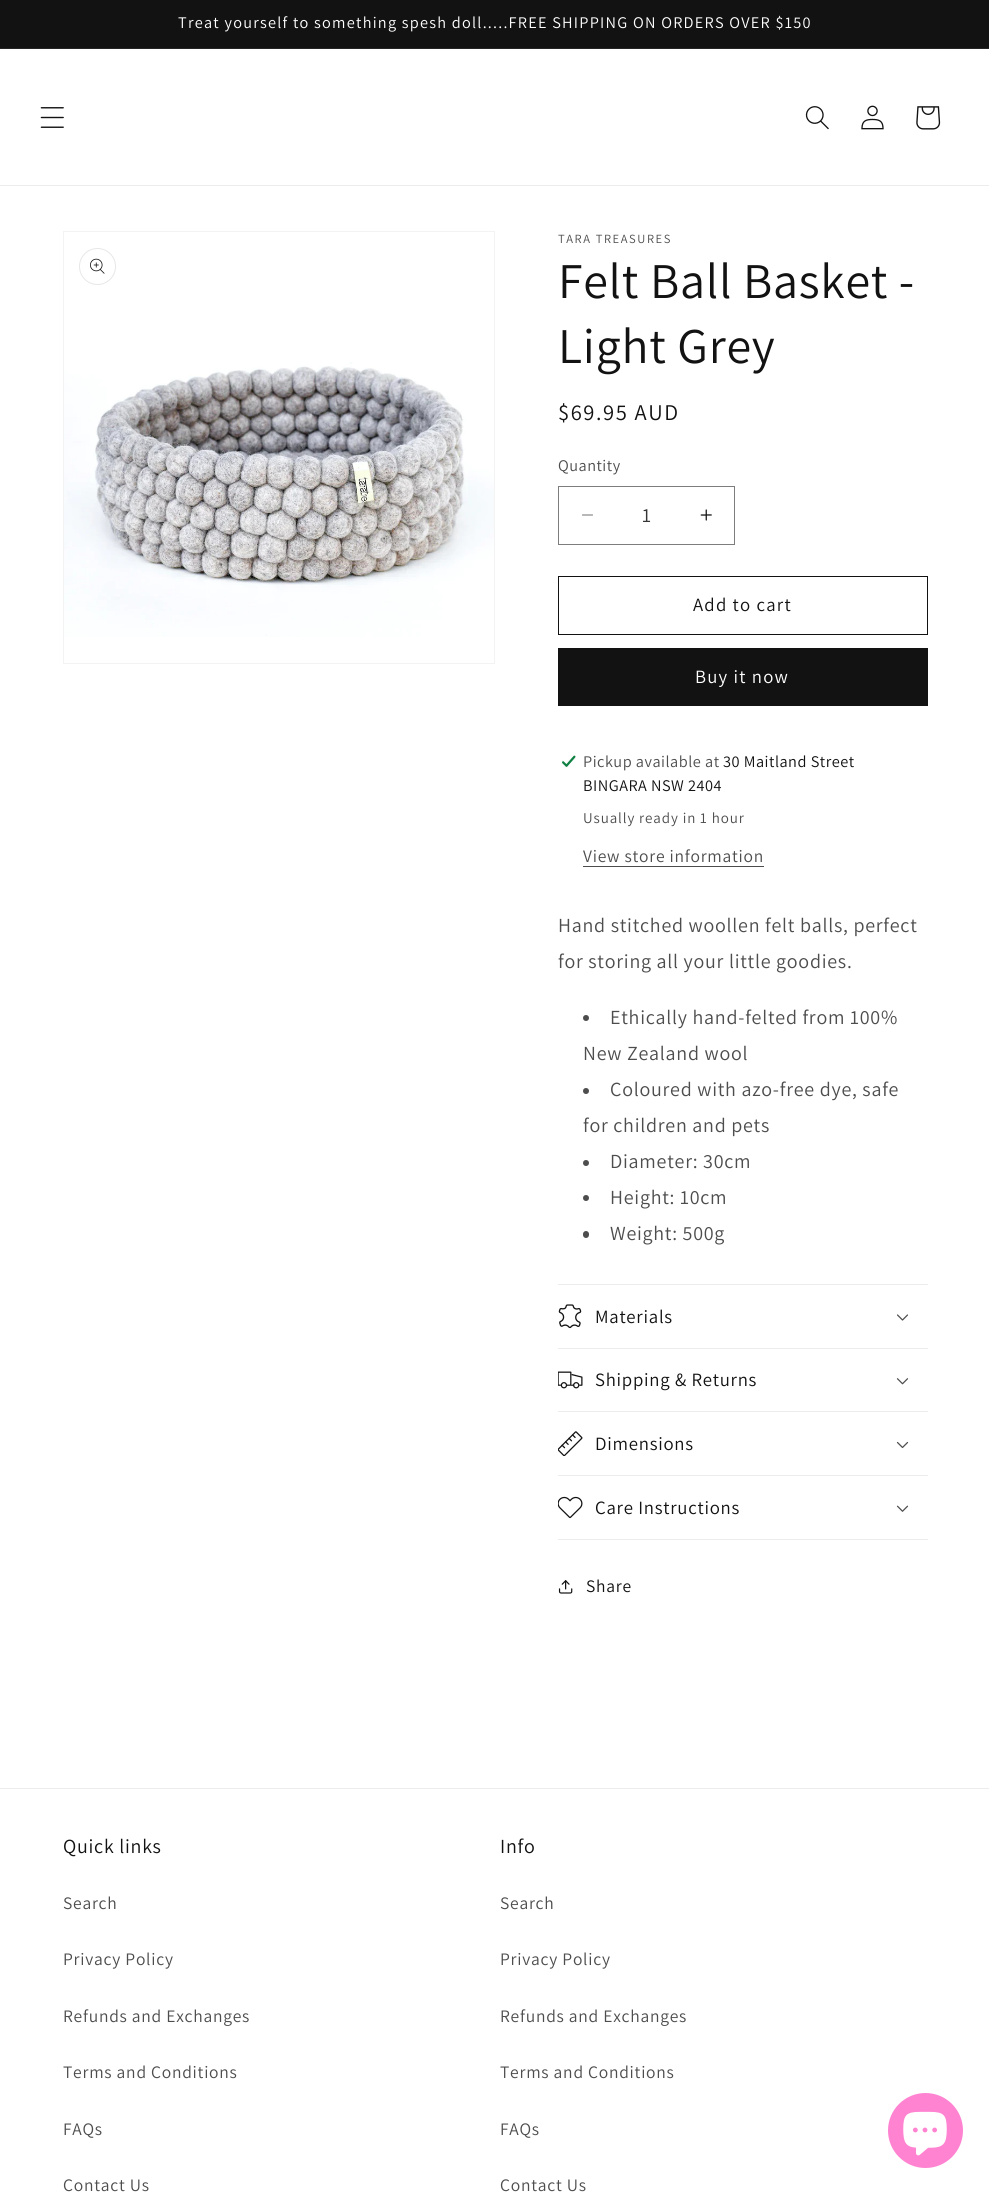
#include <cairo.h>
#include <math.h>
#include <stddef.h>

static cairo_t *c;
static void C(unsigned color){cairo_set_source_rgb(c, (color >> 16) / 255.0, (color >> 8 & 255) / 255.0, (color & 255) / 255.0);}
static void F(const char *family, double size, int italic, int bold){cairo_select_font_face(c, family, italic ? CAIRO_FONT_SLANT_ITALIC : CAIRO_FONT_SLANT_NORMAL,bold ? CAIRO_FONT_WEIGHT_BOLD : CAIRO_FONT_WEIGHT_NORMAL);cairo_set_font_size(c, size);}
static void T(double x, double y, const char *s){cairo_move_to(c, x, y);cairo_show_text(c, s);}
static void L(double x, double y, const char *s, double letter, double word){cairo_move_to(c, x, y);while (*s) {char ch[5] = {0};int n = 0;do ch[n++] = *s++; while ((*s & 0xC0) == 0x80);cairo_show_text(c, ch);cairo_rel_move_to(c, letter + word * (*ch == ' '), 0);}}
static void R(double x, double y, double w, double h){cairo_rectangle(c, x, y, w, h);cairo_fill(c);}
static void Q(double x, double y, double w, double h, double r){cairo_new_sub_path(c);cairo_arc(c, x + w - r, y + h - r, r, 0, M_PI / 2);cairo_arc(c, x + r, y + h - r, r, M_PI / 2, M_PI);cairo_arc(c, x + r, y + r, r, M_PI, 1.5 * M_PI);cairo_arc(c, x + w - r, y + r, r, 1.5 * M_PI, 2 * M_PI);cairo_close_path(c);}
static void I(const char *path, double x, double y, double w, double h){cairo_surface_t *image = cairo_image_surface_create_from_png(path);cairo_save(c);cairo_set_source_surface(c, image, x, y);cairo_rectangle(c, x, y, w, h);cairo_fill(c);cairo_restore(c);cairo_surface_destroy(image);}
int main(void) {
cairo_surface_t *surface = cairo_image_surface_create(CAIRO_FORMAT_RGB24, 989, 2193);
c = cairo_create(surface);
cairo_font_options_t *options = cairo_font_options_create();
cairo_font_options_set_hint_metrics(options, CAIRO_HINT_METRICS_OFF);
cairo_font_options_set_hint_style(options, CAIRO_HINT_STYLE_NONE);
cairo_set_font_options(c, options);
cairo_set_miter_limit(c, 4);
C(0xffffff);
cairo_paint(c);
C(0x121212);
R(0,0,989,48);
C(0x252525);
R(0,48,989,1);
F("Assistant",16.25,0,0);
C(0xffffff);
L(178,28,"Treat yourself to something spesh doll.....FREE SHIPPING ON ORDERS OVER $150",1.25,0);
C(0xececec);
R(0,185,989,1);
I("1.png",40,107,24,21);
I("2.png",805,106,24,24);
I("3.png",861,105,23,25);
I("4.png",916,106,25,24);
cairo_rectangle(c,63.5,231.5,431,432);
C(0xf3f3f3);
cairo_set_line_width(c,1);
cairo_stroke(c);
cairo_arc(c,97.5,266.5,18,0,2 * M_PI);
C(0xe7e7e7);
cairo_stroke(c);
I("5.png",90,258,15,16);
I("6.png",64,362,430,275);
F("Assistant",12.5,0,0);
C(0x4d4d4d);
L(558,243,"TARA TREASURES",1.6,0);
F("Assistant",50,0,0);
C(0x121212);
L(558,298,"Felt Ball Basket -",.75,0);
L(558,363,"Light Grey",.75,0);
F("Assistant",22.5,0,0);
L(558,420,"$69.95 AUD",1.6,0);
F("Assistant",16.25,0,0);
C(0x4d4d4d);
L(558,471,"Quantity",.5,0);
I("7.png",582,514,11,2);
I("8.png",700,509,12,12);
cairo_rectangle(c,558.5,486.5,176,58);
C(0x7d7d7d);
cairo_stroke(c);
F("Assistant",20,0,0);
C(0x363636);
T(642,522,"1");
cairo_rectangle(c,558.5,576.5,369,58);
C(0x121212);
cairo_stroke(c);
F("Assistant",18.75,0,0);
L(693,611,"Add to cart",1.25,0);
R(558,648,370,58);
C(0xffffff);
L(695,683,"Buy it now",1.25,0);
I("9.png",561,755,15,13);
F("Assistant",16.25,0,0);
C(0x4d4d4d);
L(583,767,"Pickup available at",.5,0);
C(0x121212);
L(723,767,"30 Maitland Street",.5,0);
L(583,791,"BINGARA NSW 2404",.5,0);
F("Assistant",15,0,0);
C(0x4d4d4d);
L(583,823,"Usually ready in 1 hour",.9,0);
F("Assistant",17.5,0,0);
L(583,862,"View store information",.75,0);
R(583,866,181,1);
F("Assistant",20,0,0);
L(558,932,"Hand stitched woollen felt balls, perfect",.75,0);
L(558,968,"for storing all your little goodies.",.75,0);
cairo_new_path(c);
cairo_arc(c,586,1018,3,0,2 * M_PI);
cairo_fill(c);
L(610,1024,"Ethically hand-felted from 100%",.75,0);
L(583,1060,"New Zealand wool",.75,0);
cairo_new_path(c);
cairo_arc(c,586,1091,3,0,2 * M_PI);
cairo_fill(c);
L(610,1096,"Coloured with azo-free dye, safe",.75,0);
L(583,1132,"for children and pets",.75,0);
cairo_new_path(c);
cairo_arc(c,586,1163,3,0,2 * M_PI);
cairo_fill(c);
L(610,1168,"Diameter: 30cm",.75,0);
cairo_new_path(c);
cairo_arc(c,586,1198,3,0,2 * M_PI);
cairo_fill(c);
L(610,1204,"Height: 10cm",.75,0);
Q(583,1231,6,7,3);
cairo_fill(c);
L(610,1240,"Weight: 500g",.75,0);
C(0xececec);
R(558,1284,370,1);
R(558,1348,370,1);
I("10.png",558,1304,24,25);
F("Assistant",18.75,0,0);
C(0x121212);
L(595,1323,"Materials",.75,0);
I("11.png",897,1314,11,7);
C(0xececec);
R(558,1411,370,1);
I("12.png",558,1371,25,18);
C(0x121212);
L(595,1386,"Shipping & Returns",.75,0);
I("13.png",896,1378,13,7);
C(0xececec);
R(558,1475,370,1);
I("14.png",558,1431,25,25);
C(0x121212);
L(595,1450,"Dimensions",.75,0);
I("15.png",896,1441,13,8);
C(0xececec);
R(558,1539,370,1);
I("16.png",558,1496,25,23);
C(0x121212);
L(595,1514,"Care Instructions",.75,0);
I("17.png",896,1505,13,7);
I("18.png",558,1580,15,14);
F("Assistant",17.5,0,0);
L(586,1592,"Share",.75,0);
C(0xececec);
R(0,1788,989,1);
F("Assistant",20,0,0);
C(0x121212);
L(63,1853,"Quick links",.75,0);
F("Assistant",17.5,0,0);
C(0x4d4d4d);
L(63,1909,"Search",.75,0);
L(63,1965,"Privacy Policy",.75,0);
L(63,2022,"Refunds and Exchanges",.75,0);
L(63,2078,"Terms and Conditions",.75,0);
L(63,2135,"FAQs",.75,0);
L(63,2191,"Contact Us",.75,0);
F("Assistant",20,0,0);
C(0x121212);
L(500,1853,"Info",.75,0);
F("Assistant",17.5,0,0);
C(0x4d4d4d);
L(500,1909,"Search",.75,0);
L(500,1965,"Privacy Policy",.75,0);
L(500,2022,"Refunds and Exchanges",.75,0);
L(500,2078,"Terms and Conditions",.75,0);
L(500,2135,"FAQs",.75,0);
L(500,2191,"Contact Us",.75,0);
C(0xff83d1);
cairo_new_path(c);
cairo_arc(c,925.5,2130.5,37.5,0,2 * M_PI);
cairo_fill(c);
I("19.png",903,2111,44,45);
cairo_surface_write_to_png(surface, "o.png");
cairo_font_options_destroy(options);
cairo_destroy(c);
cairo_surface_destroy(surface);
return 0;
}
